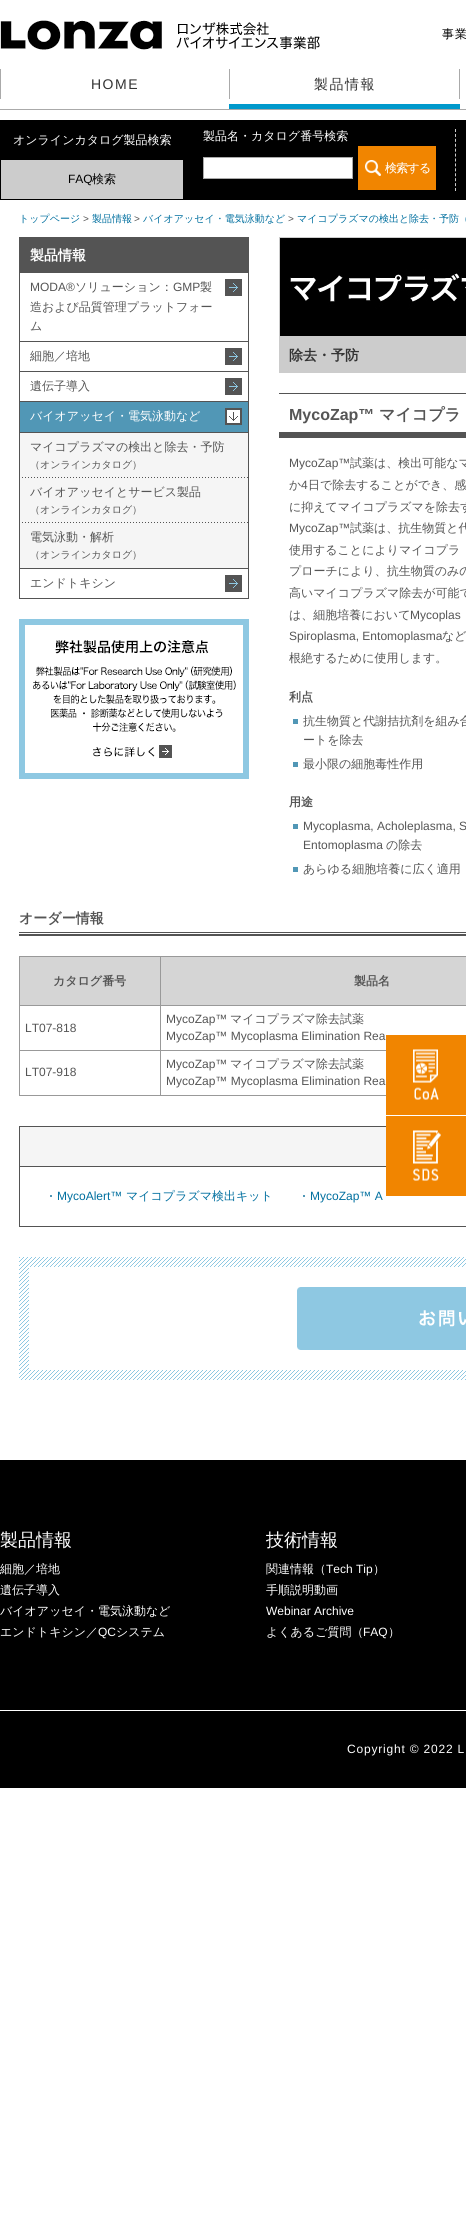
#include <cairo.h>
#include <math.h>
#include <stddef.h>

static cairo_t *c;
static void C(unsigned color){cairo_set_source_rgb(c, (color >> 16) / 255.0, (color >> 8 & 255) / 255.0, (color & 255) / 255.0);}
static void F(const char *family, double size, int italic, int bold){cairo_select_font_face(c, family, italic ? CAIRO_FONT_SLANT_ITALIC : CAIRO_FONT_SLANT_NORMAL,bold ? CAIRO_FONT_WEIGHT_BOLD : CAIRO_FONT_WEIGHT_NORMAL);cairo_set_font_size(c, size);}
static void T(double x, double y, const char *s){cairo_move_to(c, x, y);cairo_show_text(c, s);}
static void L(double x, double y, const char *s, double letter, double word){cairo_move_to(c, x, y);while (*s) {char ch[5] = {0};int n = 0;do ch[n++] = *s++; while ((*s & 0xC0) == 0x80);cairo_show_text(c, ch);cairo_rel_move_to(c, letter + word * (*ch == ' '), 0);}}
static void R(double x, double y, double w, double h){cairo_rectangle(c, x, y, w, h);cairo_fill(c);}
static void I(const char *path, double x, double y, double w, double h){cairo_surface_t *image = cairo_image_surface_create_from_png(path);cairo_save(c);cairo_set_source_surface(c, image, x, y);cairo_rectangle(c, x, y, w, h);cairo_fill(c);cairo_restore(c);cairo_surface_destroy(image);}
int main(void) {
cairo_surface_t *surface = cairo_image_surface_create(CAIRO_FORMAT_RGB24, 466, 2230);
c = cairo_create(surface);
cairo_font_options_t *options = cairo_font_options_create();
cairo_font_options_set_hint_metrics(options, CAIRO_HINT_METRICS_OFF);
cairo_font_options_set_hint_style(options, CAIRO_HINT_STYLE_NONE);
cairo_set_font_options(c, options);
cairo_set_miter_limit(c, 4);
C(0xffffff);
cairo_paint(c);
C(0xaaaaaa);
R(0,109,466,1);
I("1.png",0,20,320,30);
F("WenQuanYi Zen Hei Medium",12,0,0);
C(0x000000);
L(442,38,"事業",1,0);
C(0xaaaaaa);
R(0,69,1,30);
F("Liberation Sans",14,0,0);
C(0x333333);
L(91,89,"HOME",1.5,0);
C(0xaaaaaa);
R(229,69,1,30);
F("WenQuanYi Zen Hei Medium",14,0,0);
C(0x333333);
L(314,89,"製品情報",1.5,0);
C(0x0099cc);
R(229,104,231,5);
C(0xaaaaaa);
R(459,69,1,30);
C(0x000000);
R(0,120,466,80);
F("WenQuanYi Zen Hei Medium",12,0,0);
C(0xffffff);
T(13,144,"オンラインカタログ製品検索");
C(0xcccccc);
R(1,160,182,39);
F("Liberation Sans",12,0,0);
C(0x000000);
T(68,183,"FAQ");
F("WenQuanYi Zen Hei Medium",12,0,0);
T(92,183,"検索");
C(0xffffff);
T(203,140,"製品名・カタログ番号検索");
I("2.png",203,146,233,44);
cairo_new_path(c);
cairo_move_to(c,455.5,129);
cairo_line_to(c,455.5,191);
C(0xcccccc);
cairo_set_line_width(c,1);
cairo_set_dash(c,(double[]){3,1.92},2,0);
cairo_stroke(c);
F("WenQuanYi Zen Hei Medium",10,0,0);
C(0x006f9f);
T(19,222,"トップページ");
F("Liberation Sans",10,0,0);
C(0x555555);
T(83,222,">");
F("WenQuanYi Zen Hei Medium",10,0,0);
C(0x006f9f);
T(92,222,"製品情報");
F("Liberation Sans",10,0,0);
C(0x555555);
T(134,222,">");
F("WenQuanYi Zen Hei Medium",10,0,0);
C(0x006f9f);
T(143,222,"バイオアッセイ・電気泳動など");
F("Liberation Sans",10,0,0);
C(0x555555);
T(288,222,">");
F("WenQuanYi Zen Hei Medium",10,0,0);
C(0x006f9f);
T(297,222,"マイコプラズマの検出と除去・予防（");
C(0x545454);
R(248,237,1,362);
R(19,237,1,362);
R(20,237,228,36);
F("WenQuanYi Zen Hei",14,0,1);
C(0xffffff);
T(30,260,"製品情報");
I("3.png",225,279,17,17);
C(0x545454);
R(20,341,228,1);
F("Liberation Sans",12,0,0);
C(0x555555);
T(30,291,"MODA®");
F("WenQuanYi Zen Hei Medium",12,0,0);
T(75,291,"ソリューション：");
F("Liberation Sans",12,0,0);
T(173,291,"GMP");
F("WenQuanYi Zen Hei Medium",12,0,0);
T(200,291,"製");
T(30,311,"造および品質管理プラットフォー");
T(30,330,"ム");
I("3.png",225,348,17,17);
C(0x545454);
R(20,371,228,1);
C(0x555555);
T(30,360,"細胞／培地");
I("3.png",225,378,17,17);
C(0x545454);
R(20,401,228,1);
C(0x555555);
T(30,390,"遺伝子導入");
C(0x5197b6);
R(20,402,228,30);
I("4.png",225,408,17,17);
C(0x545454);
R(20,432,228,1);
C(0xffffff);
T(30,420,"バイオアッセイ・電気泳動など");
C(0xf5f5f5);
R(20,433,228,135);
I("5.png",22,477,226,1);
C(0x555555);
T(30,451,"マイコプラズマの検出と除去・予防");
F("WenQuanYi Zen Hei Medium",10,0,0);
T(30,468,"（オンラインカタログ）");
I("5.png",22,522,226,1);
F("WenQuanYi Zen Hei Medium",12,0,0);
T(30,496,"バイオアッセイとサービス製品");
F("WenQuanYi Zen Hei Medium",10,0,0);
T(30,513,"（オンラインカタログ）");
C(0x545454);
R(20,568,228,1);
F("WenQuanYi Zen Hei Medium",12,0,0);
C(0x555555);
T(30,541,"電気泳動・解析");
F("WenQuanYi Zen Hei Medium",10,0,0);
T(30,558,"（オンラインカタログ）");
I("3.png",225,575,17,17);
C(0x545454);
R(20,598,228,1);
F("WenQuanYi Zen Hei Medium",12,0,0);
C(0x555555);
T(30,587,"エンドトキシン");
I("6.png",19,619,230,160);
I("7.png",279,237,187,100);
C(0xcccccc);
R(279,337,187,36);
F("WenQuanYi Zen Hei",14,0,1);
C(0x333333);
T(289,360,"除去・予防");
I("8.png",279,393,187,45);
F("Liberation Sans",16,0,1);
C(0x555555);
T(289,420,"MycoZap™");
F("WenQuanYi Zen Hei",16,0,1);
T(379,420,"マイコプラ");
F("Liberation Sans",12,0,0);
T(289,467,"MycoZap™");
F("WenQuanYi Zen Hei Medium",12,0,0);
T(350,467,"試薬は、検出可能なマ");
T(289,489,"か");
F("Liberation Sans",12,0,0);
T(301,489,"4");
F("WenQuanYi Zen Hei Medium",12,0,0);
T(308,489,"日で除去することができ、感");
T(289,511,"に抑えてマイコプラズマを除去す");
F("Liberation Sans",12,0,0);
T(289,532,"MycoZap™");
F("WenQuanYi Zen Hei Medium",12,0,0);
T(350,532,"試薬は、抗生物質と代");
T(289,554,"使用することによりマイコプラ");
T(289,575,"プローチにより、抗生物質のみの");
T(289,597,"高いマイコプラズマ除去が可能で");
T(289,619,"は、細胞培養において");
F("Liberation Sans",12,0,0);
T(410,619,"Mycoplas");
T(289,640,"Spiroplasma, Entomoplasma");
F("WenQuanYi Zen Hei Medium",12,0,0);
T(442,640,"など");
T(289,662,"根絶するために使用します。");
F("WenQuanYi Zen Hei",12,0,1);
T(289,701,"利点");
C(0x5197b6);
R(293,719,5,5);
F("WenQuanYi Zen Hei Medium",12,0,0);
C(0x555555);
T(303,725,"抗生物質と代謝拮抗剤を組み合");
T(303,744,"ートを除去");
C(0x5197b6);
R(293,762,5,5);
C(0x555555);
T(303,768,"最小限の細胞毒性作用");
F("WenQuanYi Zen Hei",12,0,1);
T(289,806,"用途");
C(0x5197b6);
R(293,824,5,5);
F("Liberation Sans",12,0,0);
C(0x555555);
T(303,830,"Mycoplasma, Acholeplasma, S");
T(303,849,"Entomoplasma");
F("WenQuanYi Zen Hei Medium",12,0,0);
T(386,849,"の除去");
C(0x5197b6);
R(293,867,5,5);
C(0x555555);
T(303,873,"あらゆる細胞培養に広く適用");
I("9.png",19,932,447,4);
F("WenQuanYi Zen Hei",14,0,1);
T(19,923,"オーダー情報");
C(0x999999);
R(19,956,447,1);
R(19,1095,367,1);
R(19,956,1,140);
C(0xd5d5d5);
R(20,957,140,48);
F("WenQuanYi Zen Hei",12,0,1);
C(0x555555);
T(53,985,"カタログ番号");
C(0xd5d5d5);
R(161,957,305,48);
C(0x999999);
R(160,1005,306,1);
R(160,1050,226,1);
R(160,1050,1,46);
R(19,1050,142,1);
R(160,1005,1,46);
R(19,1005,142,1);
R(160,956,1,50);
C(0x555555);
T(354,985,"製品名");
F("Liberation Sans",12,0,0);
T(25,1032,"LT07-818");
T(166,1023,"MycoZap™");
F("WenQuanYi Zen Hei Medium",12,0,0);
T(230,1023,"マイコプラズマ除去試薬");
F("Liberation Sans",12,0,0);
T(166,1040,"MycoZap™ Mycoplasma Elimination Rea");
T(25,1076,"LT07-918");
T(166,1068,"MycoZap™");
F("WenQuanYi Zen Hei Medium",12,0,0);
T(230,1068,"マイコプラズマ除去試薬");
F("Liberation Sans",12,0,0);
T(166,1085,"MycoZap™ Mycoplasma Elimination Rea");
cairo_rectangle(c,19.5,1126.5,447,100);
C(0x545454);
cairo_set_dash(c,NULL,0,0);
cairo_stroke(c);
C(0xf5f5f5);
R(20,1127,366,39);
C(0x545454);
R(20,1166,366,1);
C(0x5197b6);
R(50,1195,2,2);
C(0x006f9f);
T(57,1200,"MycoAlert™");
F("WenQuanYi Zen Hei Medium",12,0,0);
T(126,1200,"マイコプラズマ検出キット");
C(0x5197b6);
R(303,1195,2,2);
F("Liberation Sans",12,0,0);
C(0x006f9f);
T(310,1200,"MycoZap™ A");
I("10.png",19,1257,447,123);
C(0xffffff);
R(29,1267,437,103);
I("11.png",297,1287,169,63);
C(0x000000);
R(0,1460,466,328);
C(0xf18500);
R(386,1035,80,161);
I("12.png",413,1049,26,51);
C(0xffffff);
R(386,1115,80,1);
I("13.png",413,1130,28,51);
F("WenQuanYi Zen Hei Medium",18,0,0);
T(0,1546,"製品情報");
F("WenQuanYi Zen Hei Medium",12,0,0);
T(0,1573,"細胞／培地");
T(0,1594,"遺伝子導入");
T(0,1615,"バイオアッセイ・電気泳動など");
T(0,1636,"エンドトキシン／");
F("Liberation Sans",12,0,0);
T(98,1636,"QC");
F("WenQuanYi Zen Hei Medium",12,0,0);
T(116,1636,"システム");
F("WenQuanYi Zen Hei Medium",18,0,0);
T(266,1546,"技術情報");
F("WenQuanYi Zen Hei Medium",12,0,0);
T(266,1573,"関連情報（");
F("Liberation Sans",12,0,0);
T(326,1573,"Tech Tip");
F("WenQuanYi Zen Hei Medium",12,0,0);
T(373,1573,"）");
T(266,1594,"手順説明動画");
F("Liberation Sans",12,0,0);
T(266,1615,"Webinar Archive");
F("WenQuanYi Zen Hei Medium",12,0,0);
T(266,1636,"よくあるご質問（");
F("Liberation Sans",12,0,0);
T(363,1636,"FAQ");
F("WenQuanYi Zen Hei Medium",12,0,0);
T(388,1636,"）");
R(0,1710,466,1);
F("Liberation Sans",12,0,0);
L(347,1753,"Copyright © 2022 L",.8,0);
cairo_surface_write_to_png(surface, "o.png");
cairo_font_options_destroy(options);
cairo_destroy(c);
cairo_surface_destroy(surface);
return 0;
}
